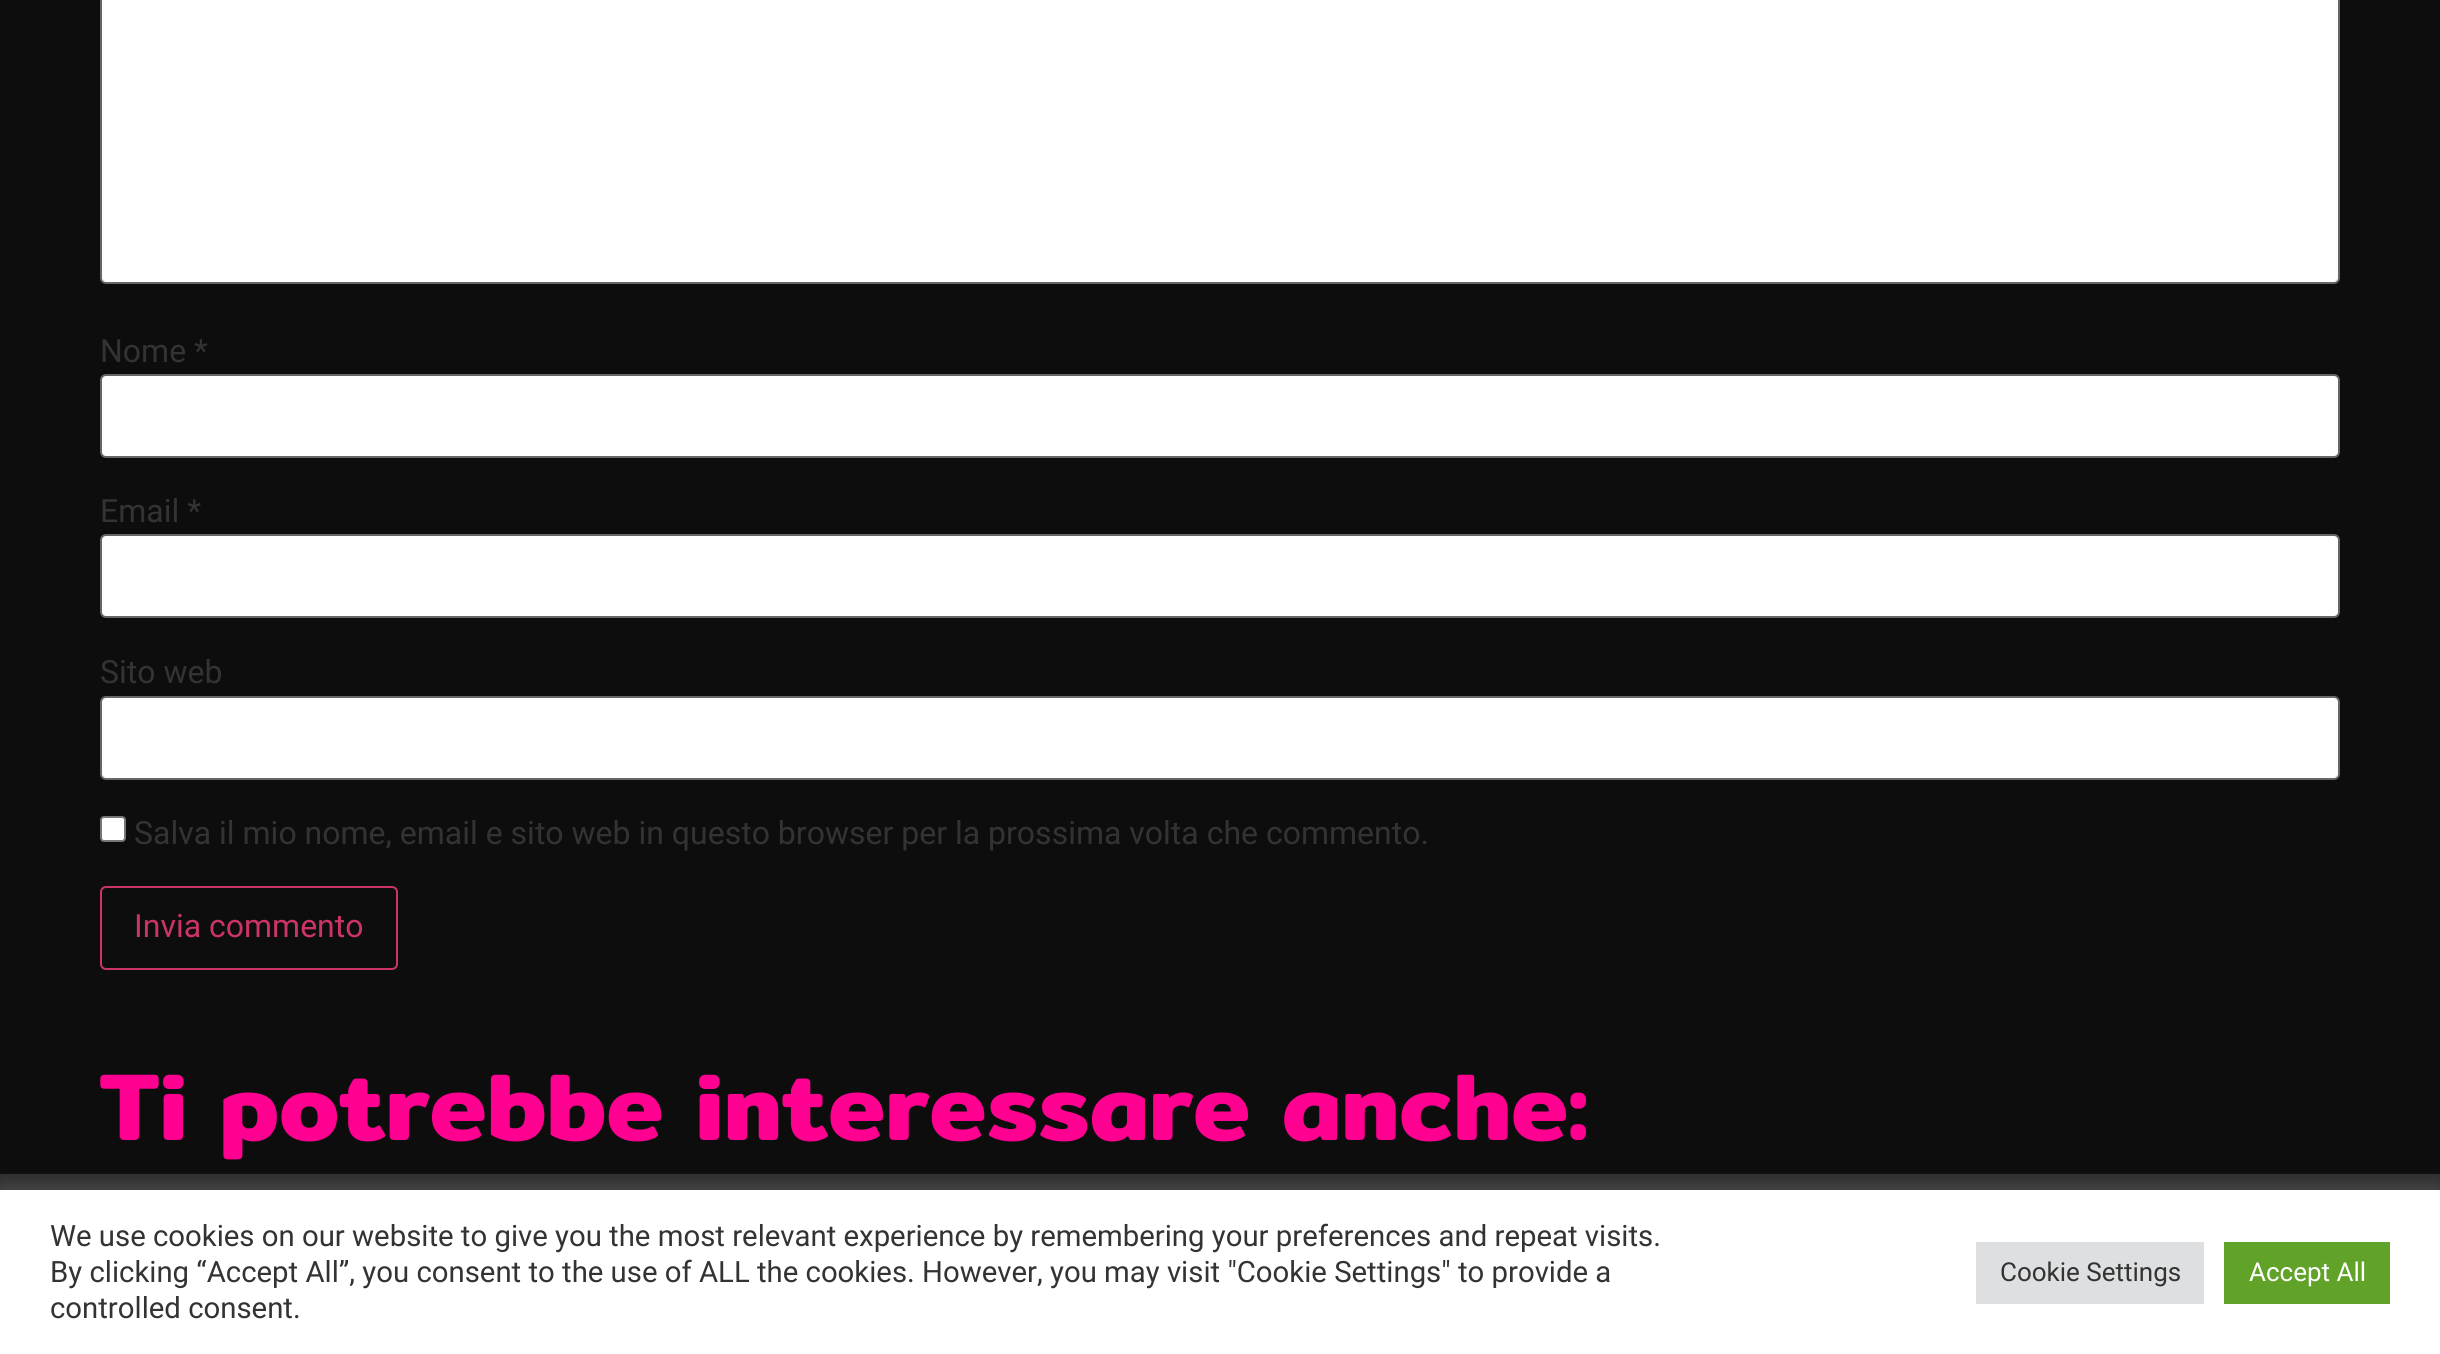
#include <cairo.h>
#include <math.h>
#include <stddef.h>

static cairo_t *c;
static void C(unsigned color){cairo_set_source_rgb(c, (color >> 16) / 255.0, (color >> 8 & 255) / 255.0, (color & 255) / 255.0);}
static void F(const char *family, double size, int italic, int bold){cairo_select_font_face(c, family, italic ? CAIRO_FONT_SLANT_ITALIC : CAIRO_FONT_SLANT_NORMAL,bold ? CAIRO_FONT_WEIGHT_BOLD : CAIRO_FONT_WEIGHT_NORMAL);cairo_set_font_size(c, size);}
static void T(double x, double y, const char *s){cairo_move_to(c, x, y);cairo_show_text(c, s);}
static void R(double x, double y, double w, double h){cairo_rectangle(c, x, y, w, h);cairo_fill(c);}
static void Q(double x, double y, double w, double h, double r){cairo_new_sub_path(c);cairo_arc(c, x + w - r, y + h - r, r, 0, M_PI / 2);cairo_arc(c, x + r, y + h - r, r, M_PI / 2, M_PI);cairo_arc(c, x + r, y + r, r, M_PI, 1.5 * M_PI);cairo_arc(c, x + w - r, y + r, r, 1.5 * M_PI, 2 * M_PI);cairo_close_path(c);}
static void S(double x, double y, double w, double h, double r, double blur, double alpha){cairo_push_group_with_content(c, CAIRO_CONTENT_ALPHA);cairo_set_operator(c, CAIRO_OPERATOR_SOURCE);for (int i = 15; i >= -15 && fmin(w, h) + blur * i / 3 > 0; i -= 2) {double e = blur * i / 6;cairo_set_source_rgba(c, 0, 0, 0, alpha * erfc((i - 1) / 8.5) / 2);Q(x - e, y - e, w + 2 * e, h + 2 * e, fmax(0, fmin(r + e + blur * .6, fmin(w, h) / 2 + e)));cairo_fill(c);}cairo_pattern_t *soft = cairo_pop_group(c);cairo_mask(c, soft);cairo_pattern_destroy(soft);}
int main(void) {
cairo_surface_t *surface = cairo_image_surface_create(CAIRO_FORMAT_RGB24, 2440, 1354);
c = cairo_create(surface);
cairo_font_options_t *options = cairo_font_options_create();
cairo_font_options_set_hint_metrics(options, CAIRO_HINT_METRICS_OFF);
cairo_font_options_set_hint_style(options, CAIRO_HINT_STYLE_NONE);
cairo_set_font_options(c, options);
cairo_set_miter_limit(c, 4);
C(0x0d0d0d);
cairo_paint(c);
C(0xffffff);
Q(101,-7,2238,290,5);
cairo_fill_preserve(c);
C(0x666666);
cairo_stroke(c);
F("Roboto",32,0,0);
C(0x333333);
T(100,362,"Nome *");
C(0xffffff);
Q(101,375,2238,82,5);
cairo_fill_preserve(c);
C(0x666666);
cairo_stroke(c);
C(0x333333);
T(100,522,"Email *");
C(0xffffff);
Q(101,535,2238,82,5);
cairo_fill_preserve(c);
C(0x666666);
cairo_stroke(c);
C(0x333333);
T(100,683,"Sito web");
C(0xffffff);
Q(101,697,2238,82,5);
cairo_fill_preserve(c);
C(0x666666);
cairo_stroke(c);
C(0xffffff);
Q(101,817,24,24,3);
cairo_fill_preserve(c);
C(0x767676);
cairo_stroke(c);
C(0x333333);
T(134,844,"Salva il mio nome, email e sito web in questo browser per la prossima volta che commento.");
Q(101,887,296,82,5);
C(0xcc3366);
cairo_stroke(c);
T(134,937,"Invia commento");
F("Mitr SemiBold",96,0,0);
C(0xff0091);
T(100,1140,"Ti potrebbe interessare anche:");
C(0x2d2d2d);
R(0,1174,2440,16);
C(0xacabab);
S(0,1188,2440,164,0,10,.3);
C(0xffffff);
R(0,1190,2440,164);
F("Roboto",29.33,0,0);
C(0x333333);
T(50,1246,"We use cookies on our website to give you the most relevant experience by remembering your preferences and repeat visits.");
T(50,1282,"By clicking “Accept All”, you consent to the use of ALL the cookies. However, you may visit \"Cookie Settings\" to provide a");
T(50,1318,"controlled consent.");
C(0xdedfe0);
R(1976,1242,228,62);
F("Roboto",26,0,0);
C(0x333333);
T(2000,1281,"Cookie Settings");
C(0x61a229);
R(2224,1242,166,62);
C(0xffffff);
T(2249,1281,"Accept All");
cairo_surface_write_to_png(surface, "o.png");
cairo_font_options_destroy(options);
cairo_destroy(c);
cairo_surface_destroy(surface);
return 0;
}
